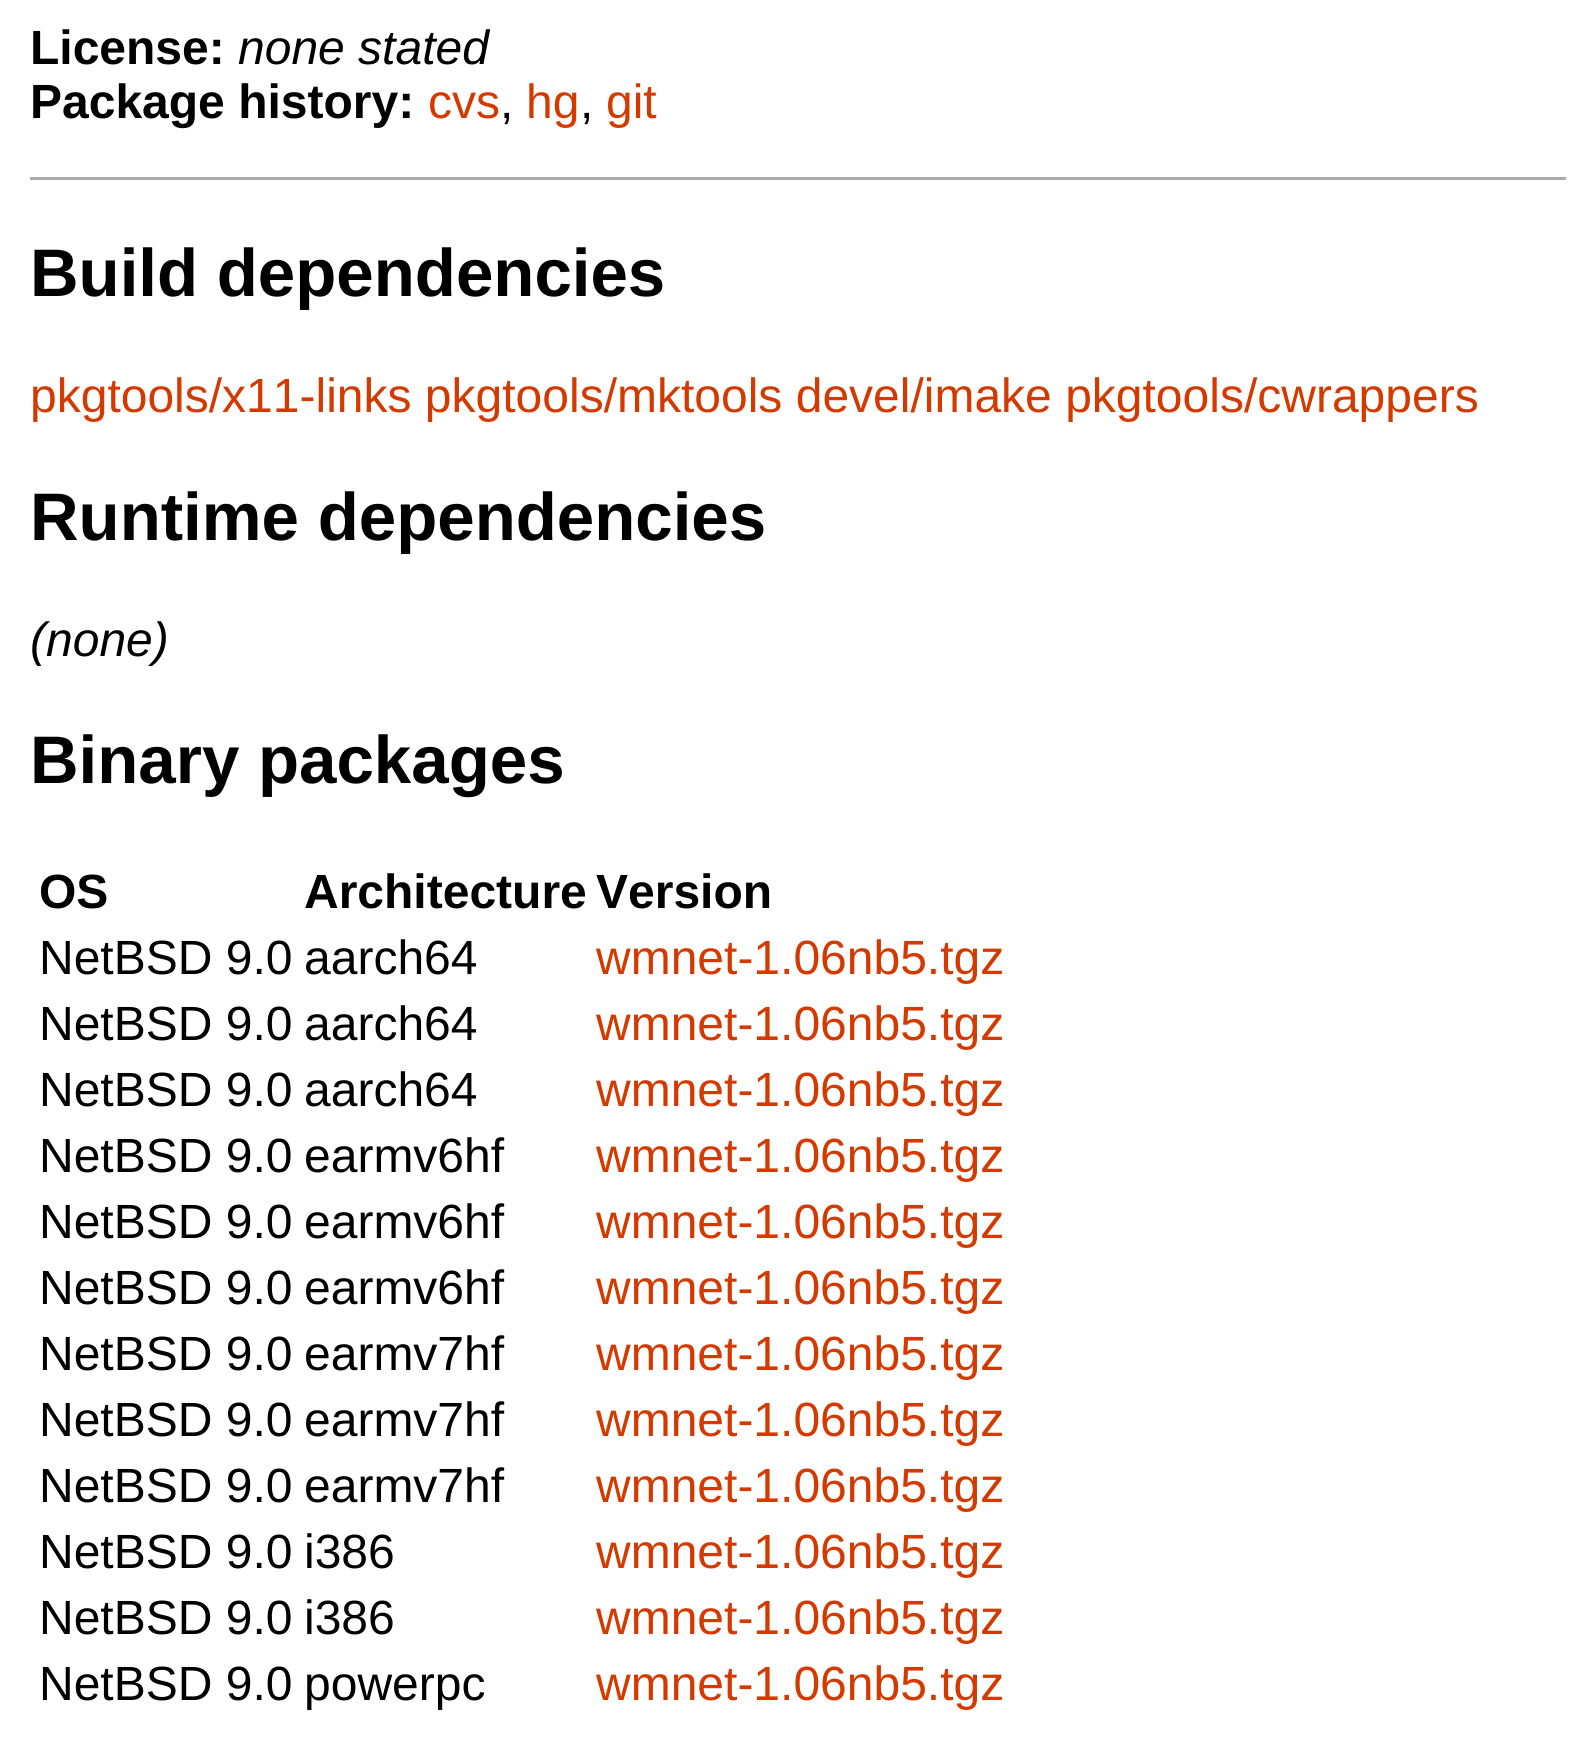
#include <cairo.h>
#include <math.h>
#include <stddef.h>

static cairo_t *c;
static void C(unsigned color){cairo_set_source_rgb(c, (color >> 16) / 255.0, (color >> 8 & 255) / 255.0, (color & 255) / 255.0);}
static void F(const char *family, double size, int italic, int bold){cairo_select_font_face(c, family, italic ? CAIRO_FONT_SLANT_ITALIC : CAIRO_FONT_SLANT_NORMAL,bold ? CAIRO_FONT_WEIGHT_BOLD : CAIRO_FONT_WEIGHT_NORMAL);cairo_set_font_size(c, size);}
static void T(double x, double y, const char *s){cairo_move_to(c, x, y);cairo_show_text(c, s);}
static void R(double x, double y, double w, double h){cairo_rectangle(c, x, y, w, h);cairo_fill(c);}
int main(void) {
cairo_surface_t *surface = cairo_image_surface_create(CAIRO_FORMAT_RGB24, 1596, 1745);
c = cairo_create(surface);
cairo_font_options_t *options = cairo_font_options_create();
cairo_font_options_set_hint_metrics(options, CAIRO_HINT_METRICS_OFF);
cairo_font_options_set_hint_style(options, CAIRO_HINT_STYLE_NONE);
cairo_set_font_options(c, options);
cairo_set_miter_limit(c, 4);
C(0xffffff);
cairo_paint(c);
C(0xaaaaaa);
R(30,177,1536,3);
F("Liberation Sans",48,0,1);
C(0x000000);
T(30,64,"License:");
F("Liberation Sans",48,1,0);
T(238,64,"none stated");
F("Liberation Sans",48,0,1);
T(30,118,"Package history:");
F("Liberation Sans",48,0,0);
C(0xd43900);
T(428,118,"cvs");
C(0x000000);
T(500,118,",");
C(0xd43900);
T(526,118,"hg");
C(0x000000);
T(580,118,",");
C(0xd43900);
T(606,118,"git");
F("Liberation Sans",67.25,0,1);
C(0x000000);
T(30,296,"Build dependencies");
F("Liberation Sans",48,0,0);
C(0xd43900);
T(30,412,"pkgtools/x11-links pkgtools/mktools devel/imake pkgtools/cwrappers");
F("Liberation Sans",67.25,0,1);
C(0x000000);
T(30,540,"Runtime dependencies");
F("Liberation Sans",48,1,0);
T(30,656,"(none)");
F("Liberation Sans",67.25,0,1);
T(30,783,"Binary packages");
F("Liberation Sans",48,0,1);
T(39,908,"OS");
T(304,908,"Architecture");
T(596,908,"Version");
F("Liberation Sans",48,0,0);
T(39,974,"NetBSD 9.0");
T(304,974,"aarch64");
C(0xd43900);
T(596,974,"wmnet-1.06nb5.tgz");
C(0x000000);
T(39,1040,"NetBSD 9.0");
T(304,1040,"aarch64");
C(0xd43900);
T(596,1040,"wmnet-1.06nb5.tgz");
C(0x000000);
T(39,1106,"NetBSD 9.0");
T(304,1106,"aarch64");
C(0xd43900);
T(596,1106,"wmnet-1.06nb5.tgz");
C(0x000000);
T(39,1172,"NetBSD 9.0");
T(304,1172,"earmv6hf");
C(0xd43900);
T(596,1172,"wmnet-1.06nb5.tgz");
C(0x000000);
T(39,1238,"NetBSD 9.0");
T(304,1238,"earmv6hf");
C(0xd43900);
T(596,1238,"wmnet-1.06nb5.tgz");
C(0x000000);
T(39,1304,"NetBSD 9.0");
T(304,1304,"earmv6hf");
C(0xd43900);
T(596,1304,"wmnet-1.06nb5.tgz");
C(0x000000);
T(39,1370,"NetBSD 9.0");
T(304,1370,"earmv7hf");
C(0xd43900);
T(596,1370,"wmnet-1.06nb5.tgz");
C(0x000000);
T(39,1436,"NetBSD 9.0");
T(304,1436,"earmv7hf");
C(0xd43900);
T(596,1436,"wmnet-1.06nb5.tgz");
C(0x000000);
T(39,1502,"NetBSD 9.0");
T(304,1502,"earmv7hf");
C(0xd43900);
T(596,1502,"wmnet-1.06nb5.tgz");
C(0x000000);
T(39,1568,"NetBSD 9.0");
T(304,1568,"i386");
C(0xd43900);
T(596,1568,"wmnet-1.06nb5.tgz");
C(0x000000);
T(39,1634,"NetBSD 9.0");
T(304,1634,"i386");
C(0xd43900);
T(596,1634,"wmnet-1.06nb5.tgz");
C(0x000000);
T(39,1700,"NetBSD 9.0");
T(304,1700,"powerpc");
C(0xd43900);
T(596,1700,"wmnet-1.06nb5.tgz");
cairo_surface_write_to_png(surface, "o.png");
cairo_font_options_destroy(options);
cairo_destroy(c);
cairo_surface_destroy(surface);
return 0;
}
